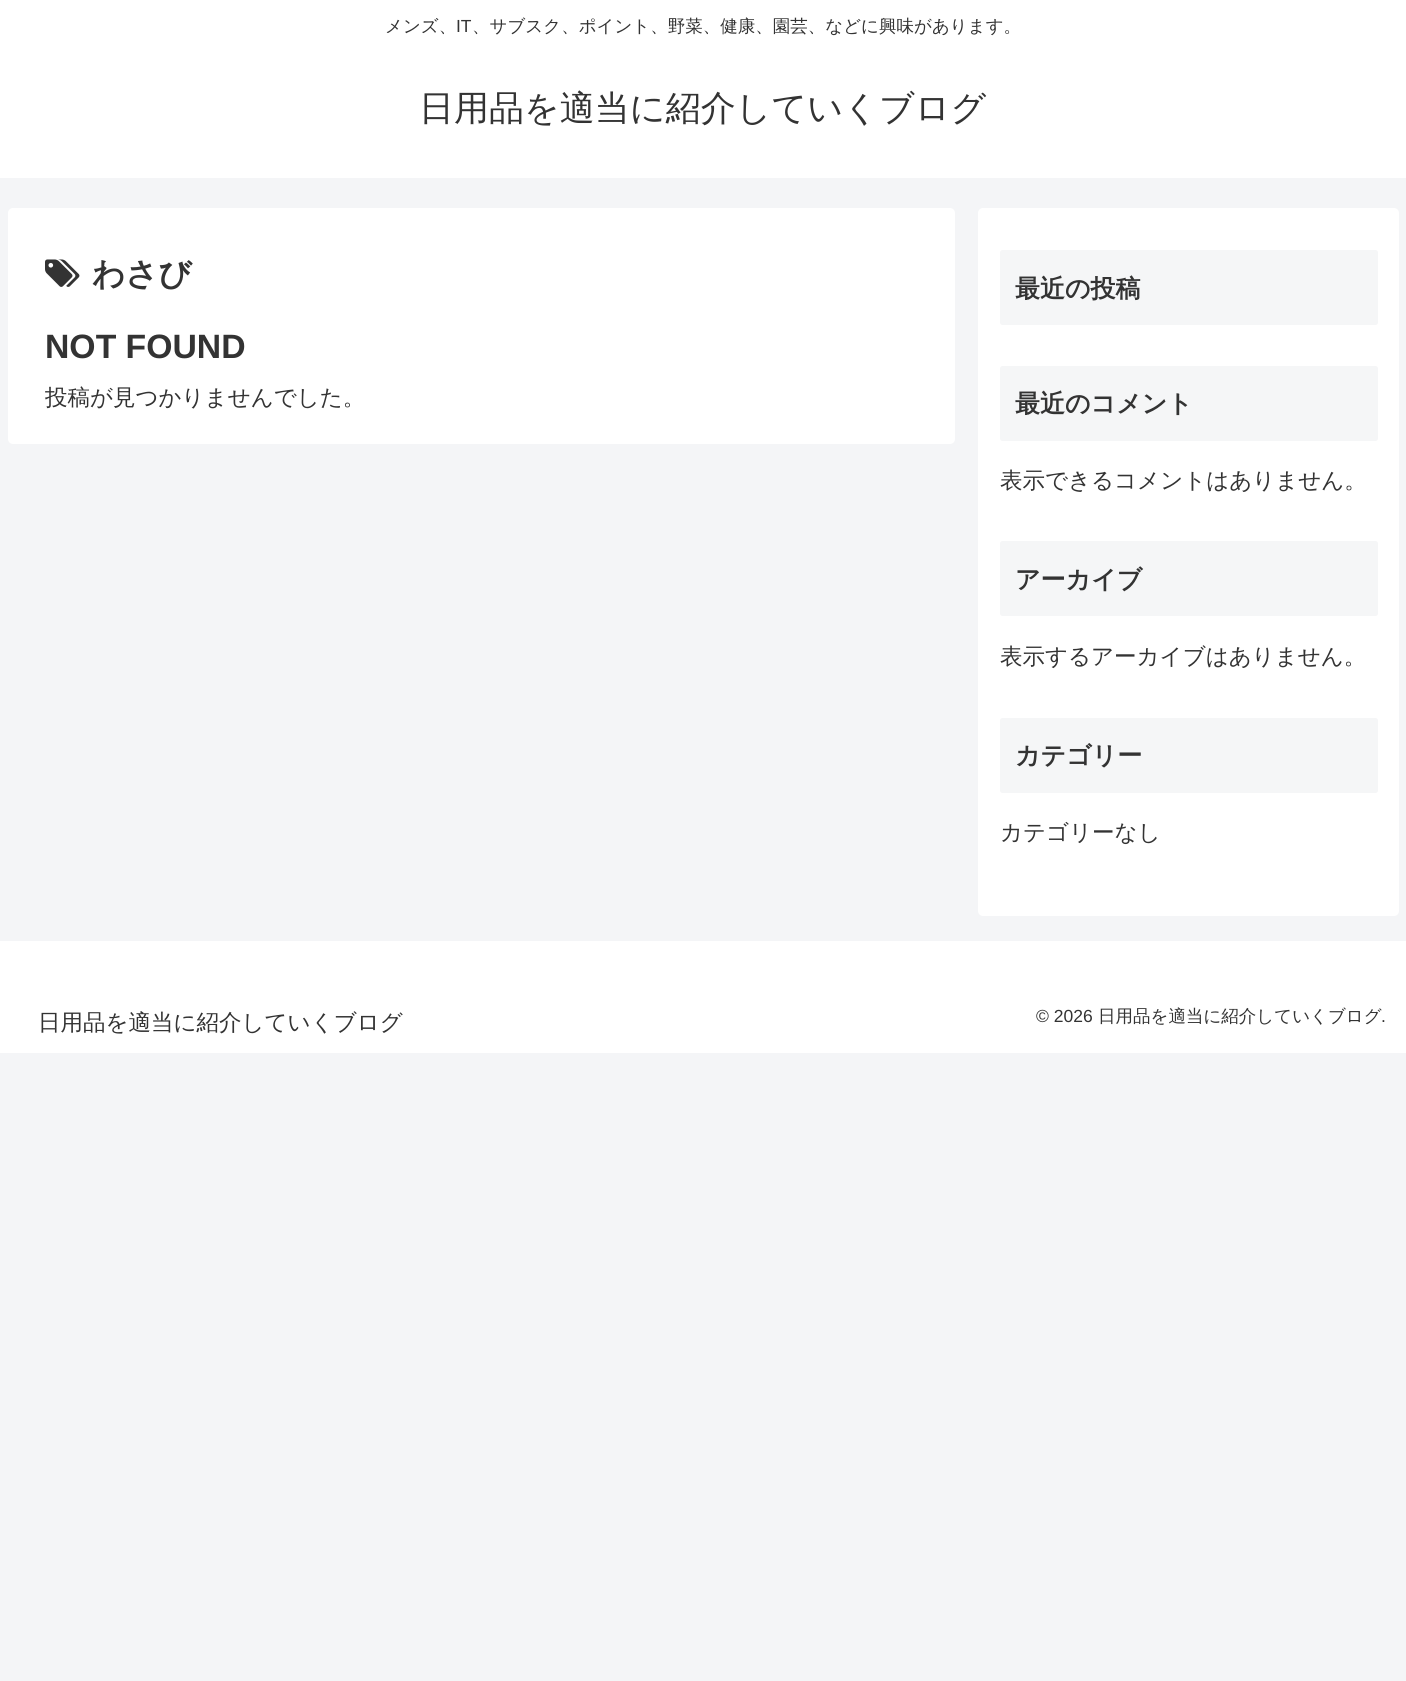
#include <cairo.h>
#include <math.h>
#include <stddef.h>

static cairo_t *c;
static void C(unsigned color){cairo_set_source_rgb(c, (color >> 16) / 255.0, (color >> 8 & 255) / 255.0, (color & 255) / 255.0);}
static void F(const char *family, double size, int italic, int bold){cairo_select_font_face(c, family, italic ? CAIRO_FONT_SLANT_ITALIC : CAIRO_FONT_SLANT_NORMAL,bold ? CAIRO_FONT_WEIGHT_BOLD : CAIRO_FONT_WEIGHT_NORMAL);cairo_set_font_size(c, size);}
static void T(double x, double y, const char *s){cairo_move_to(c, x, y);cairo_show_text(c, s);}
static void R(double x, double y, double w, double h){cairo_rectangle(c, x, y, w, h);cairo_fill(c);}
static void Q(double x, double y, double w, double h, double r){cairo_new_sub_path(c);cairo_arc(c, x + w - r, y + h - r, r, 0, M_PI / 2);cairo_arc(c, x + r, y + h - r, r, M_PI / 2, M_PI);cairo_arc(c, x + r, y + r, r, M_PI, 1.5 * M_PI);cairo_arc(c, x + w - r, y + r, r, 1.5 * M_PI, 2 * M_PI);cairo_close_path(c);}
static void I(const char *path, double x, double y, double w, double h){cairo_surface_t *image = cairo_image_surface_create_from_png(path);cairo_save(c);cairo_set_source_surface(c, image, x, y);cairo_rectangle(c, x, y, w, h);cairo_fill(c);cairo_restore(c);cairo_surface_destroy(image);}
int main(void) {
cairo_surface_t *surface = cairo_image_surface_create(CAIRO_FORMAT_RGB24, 1406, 1681);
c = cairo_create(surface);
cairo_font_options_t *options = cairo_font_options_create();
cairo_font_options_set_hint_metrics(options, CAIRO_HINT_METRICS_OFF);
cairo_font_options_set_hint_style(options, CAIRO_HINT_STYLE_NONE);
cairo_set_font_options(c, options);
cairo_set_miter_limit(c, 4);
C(0xf4f5f7);
cairo_paint(c);
C(0xffffff);
R(0,0,1406,178);
F("WenQuanYi Zen Hei Medium",17.5,0,0);
C(0x333333);
T(385,32,"メンズ、");
F("Liberation Sans",17.5,0,0);
T(456,32,"IT");
F("WenQuanYi Zen Hei Medium",17.5,0,0);
T(472,32,"、サブスク、ポイント、野菜、健康、園芸、などに興味があります。");
F("WenQuanYi Zen Hei Medium",35,0,0);
T(419,120,"日用品を適当に紹介していくブログ");
C(0xffffff);
Q(8,208,947,236,5);
cairo_fill(c);
I("1.png",45,259,35,28);
F("WenQuanYi Zen Hei",32.5,0,1);
C(0x333333);
T(92,285,"わさび");
F("Liberation Sans",33.75,0,1);
T(45,358,"NOT FOUND");
F("WenQuanYi Zen Hei Medium",22.5,0,0);
T(45,405,"投稿が見つかりませんでした。");
C(0xffffff);
Q(978,208,421,708,5);
cairo_fill(c);
C(0xf5f6f7);
Q(1000,250,378,75,2.5);
cairo_fill(c);
F("WenQuanYi Zen Hei",25,0,1);
C(0x333333);
T(1015,297,"最近の投稿");
C(0xf5f6f7);
Q(1000,366,378,75,2.5);
cairo_fill(c);
C(0x333333);
T(1015,412,"最近のコメント");
F("WenQuanYi Zen Hei Medium",22.5,0,0);
T(1000,488,"表示できるコメントはありません。");
C(0xf5f6f7);
Q(1000,541,378,75,2.5);
cairo_fill(c);
F("WenQuanYi Zen Hei",25,0,1);
C(0x333333);
T(1015,588,"アーカイブ");
F("WenQuanYi Zen Hei Medium",22.5,0,0);
T(1000,664,"表示するアーカイブはありません。");
C(0xf5f6f7);
Q(1000,718,378,75,2.5);
cairo_fill(c);
F("WenQuanYi Zen Hei",25,0,1);
C(0x333333);
T(1015,764,"カテゴリー");
F("WenQuanYi Zen Hei Medium",22.5,0,0);
T(1000,840,"カテゴリーなし");
C(0xffffff);
R(0,941,1406,112);
C(0x333333);
T(38,1030,"日用品を適当に紹介していくブログ");
F("Liberation Sans",17.5,0,0);
T(1036,1022,"© 2026");
F("WenQuanYi Zen Hei Medium",17.5,0,0);
T(1098,1022,"日用品を適当に紹介していくブログ");
F("Liberation Sans",17.5,0,0);
T(1381,1022,".");
cairo_surface_write_to_png(surface, "o.png");
cairo_font_options_destroy(options);
cairo_destroy(c);
cairo_surface_destroy(surface);
return 0;
}
